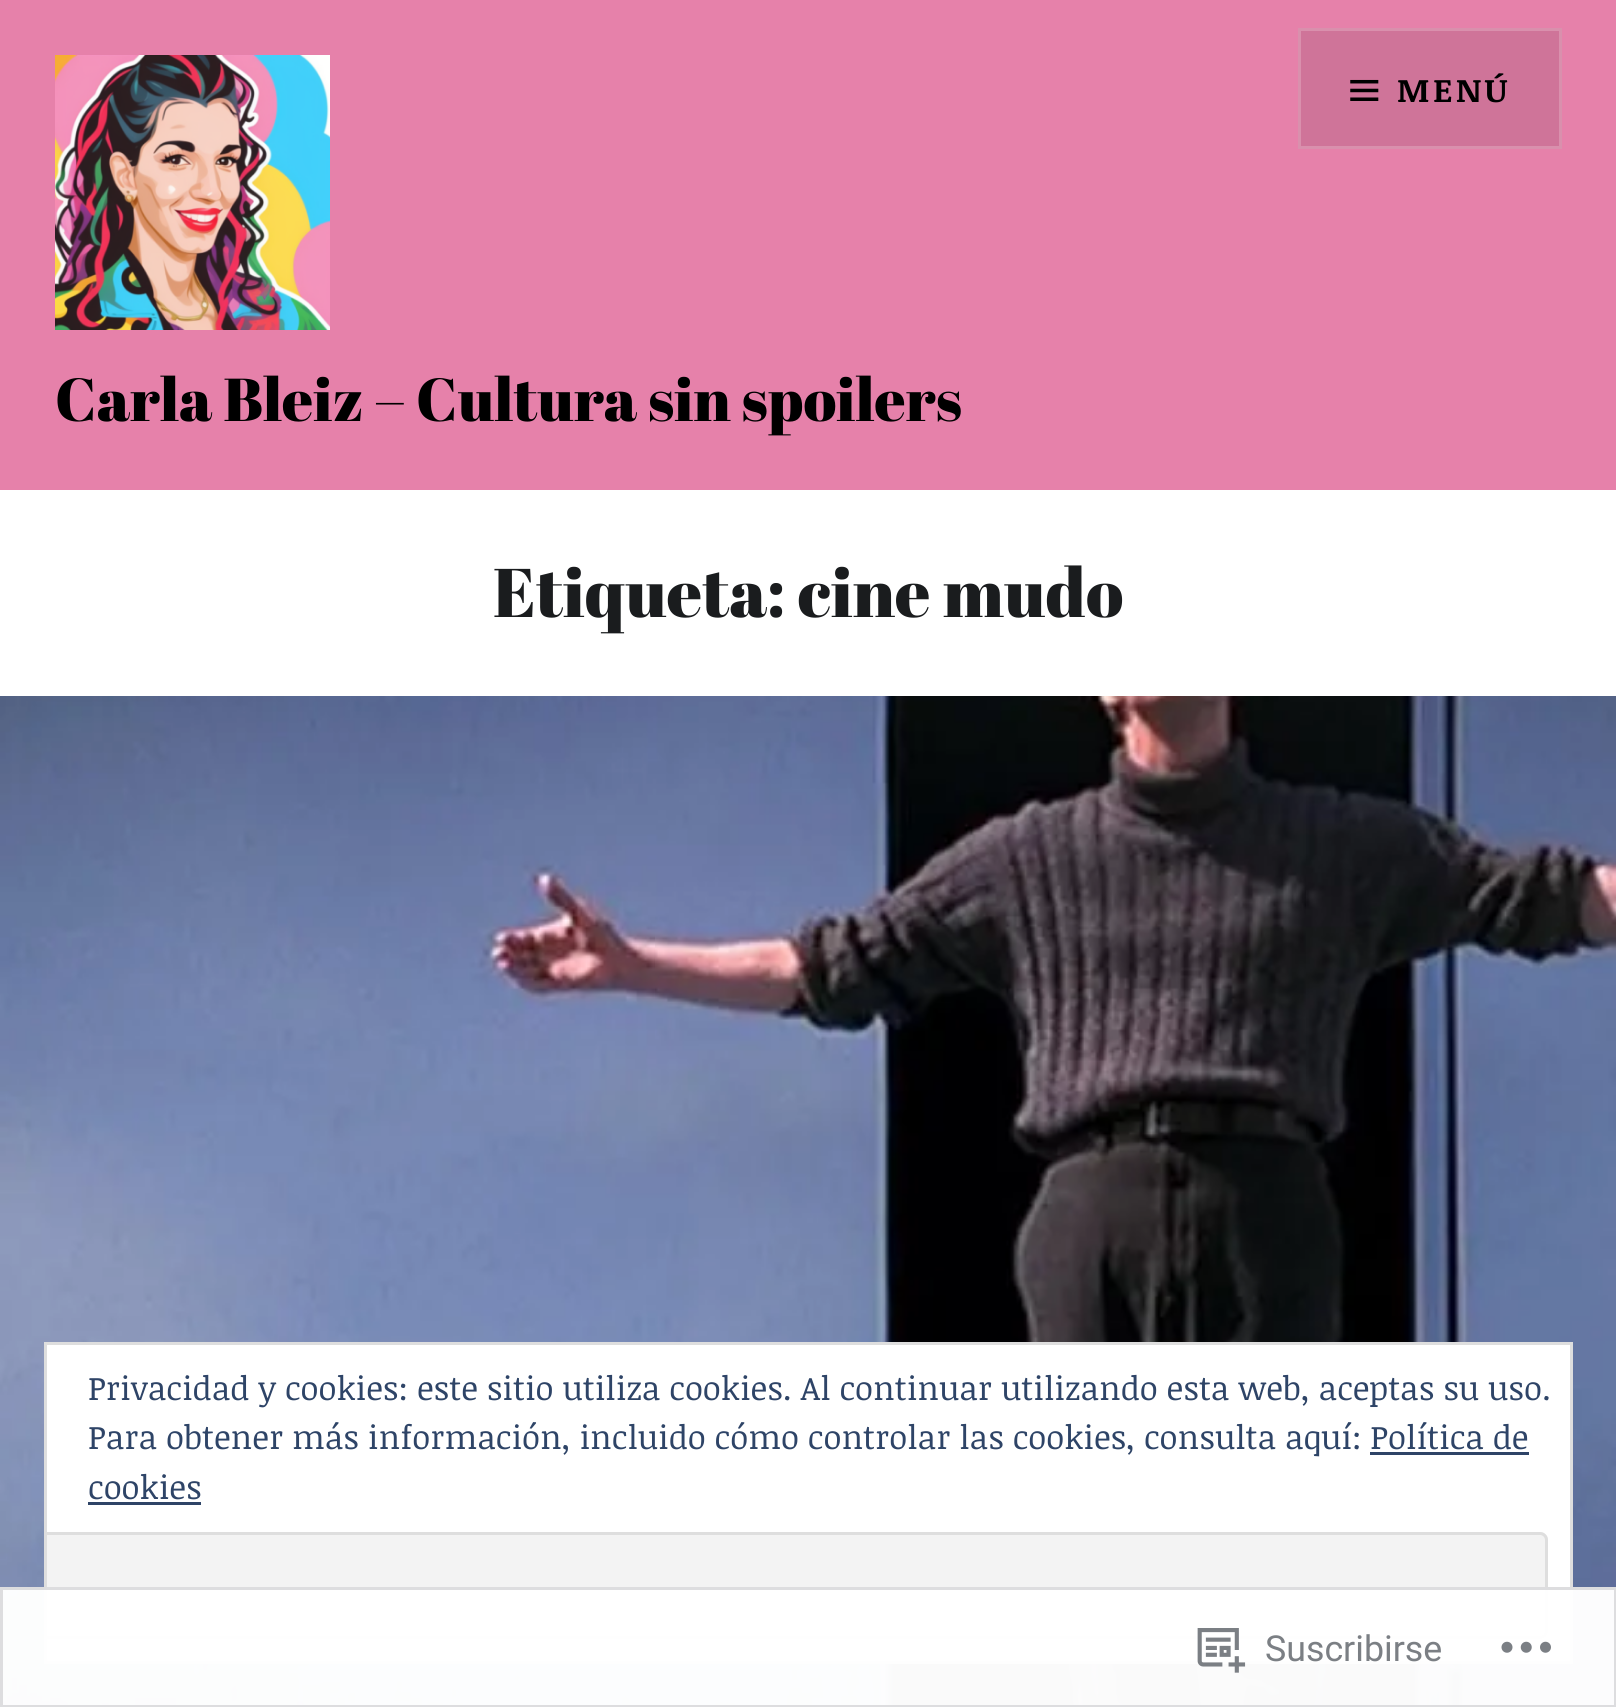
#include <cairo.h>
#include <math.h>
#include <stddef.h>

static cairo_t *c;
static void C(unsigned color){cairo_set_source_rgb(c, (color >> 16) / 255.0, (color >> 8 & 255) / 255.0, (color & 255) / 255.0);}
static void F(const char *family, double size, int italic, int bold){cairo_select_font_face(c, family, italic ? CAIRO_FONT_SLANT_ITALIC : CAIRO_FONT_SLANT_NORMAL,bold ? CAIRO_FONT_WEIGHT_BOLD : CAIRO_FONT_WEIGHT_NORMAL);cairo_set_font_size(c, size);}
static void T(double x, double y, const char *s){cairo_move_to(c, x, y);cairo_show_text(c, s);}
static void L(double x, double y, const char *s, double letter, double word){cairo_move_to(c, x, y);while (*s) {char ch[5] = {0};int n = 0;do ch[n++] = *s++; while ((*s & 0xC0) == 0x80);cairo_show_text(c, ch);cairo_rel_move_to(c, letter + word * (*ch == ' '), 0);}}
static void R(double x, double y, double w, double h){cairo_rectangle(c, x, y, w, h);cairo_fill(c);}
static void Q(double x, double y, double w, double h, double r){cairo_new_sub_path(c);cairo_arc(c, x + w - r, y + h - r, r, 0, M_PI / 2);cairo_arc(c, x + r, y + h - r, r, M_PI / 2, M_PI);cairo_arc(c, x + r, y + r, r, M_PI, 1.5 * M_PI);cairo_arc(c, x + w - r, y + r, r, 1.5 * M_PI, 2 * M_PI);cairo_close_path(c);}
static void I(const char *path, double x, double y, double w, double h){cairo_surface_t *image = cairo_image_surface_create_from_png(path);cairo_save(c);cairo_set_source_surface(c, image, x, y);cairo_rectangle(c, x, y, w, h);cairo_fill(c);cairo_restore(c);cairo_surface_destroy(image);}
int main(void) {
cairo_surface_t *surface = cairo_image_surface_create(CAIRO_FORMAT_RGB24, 1616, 1707);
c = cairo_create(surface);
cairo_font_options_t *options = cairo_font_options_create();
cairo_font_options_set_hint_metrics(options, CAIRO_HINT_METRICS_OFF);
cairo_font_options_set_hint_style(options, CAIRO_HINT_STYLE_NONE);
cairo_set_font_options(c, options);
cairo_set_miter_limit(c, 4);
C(0xffffff);
cairo_paint(c);
C(0xe681aa);
R(0,0,1616,490);
C(0xcf7499);
cairo_rectangle(c,1299.5,29.5,261,118);
cairo_fill_preserve(c);
C(0xd990ad);
cairo_set_line_width(c,3);
cairo_stroke(c);
I("1.png",1350,79,29,22);
F("Noticia Text",33,0,1);
C(0x000000);
L(1397,102,"MENÚ",3.5,0);
I("2.png",55,55,275,275);
F("Abril Fatface",60.5,0,0);
T(55,421,"Carla Bleiz – Cultura sin spoilers");
F("Abril Fatface",68.75,0,0);
C(0x1a1c1e);
T(493,617,"Etiqueta: cine mudo");
I("3.png",0,696,1616,1011);
C(0xffffff);
Q(740,1705,137,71,68.5);
cairo_fill(c);
cairo_rectangle(c,45.5,1343.5,1526,319);
cairo_fill_preserve(c);
C(0xdedede);
cairo_stroke(c);
F("Noticia Text",33,0,0);
C(0x2e4467);
T(88,1400,"Privacidad y cookies: este sitio utiliza cookies. Al continuar utilizando esta web, aceptas su uso.");
T(88,1449,"Para obtener más información, incluido cómo controlar las cookies, consulta aquí: Política de");
T(88,1499,"cookies");
R(1370,1452,159,3);
R(88,1502,113,3);
C(0xf3f3f3);
cairo_new_path(c);
cairo_move_to(c,47,1532);
cairo_line_to(c,1540,1532);
cairo_curve_to(c,1544.5,1532,1548,1535.5,1548,1540);
cairo_line_to(c,1548,1631);
cairo_curve_to(c,1548,1635.5,1544.5,1639,1540,1639);
cairo_line_to(c,47,1639);
cairo_close_path(c);
cairo_fill(c);
cairo_save(c);
cairo_rectangle(c,47,1345,1523,316);
cairo_clip(c);
Q(26.5,1533.5,1520,104,6.5);
C(0xdedede);
cairo_stroke(c);
cairo_restore(c);
cairo_set_source_rgba(c,1,1,1,0.98);
R(0,1587,1616,120);
cairo_rectangle(c,1.5,1588.5,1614,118);
cairo_set_source_rgba(c,0.863,0.863,0.871,0.98);
cairo_stroke(c);
I("4.png",1197,1628,49,45);
F("Roboto",35.75,0,0);
C(0x7b7f84);
T(1265,1661,"Suscribirse");
I("5.png",1501,1641,50,12);
cairo_surface_write_to_png(surface, "o.png");
cairo_font_options_destroy(options);
cairo_destroy(c);
cairo_surface_destroy(surface);
return 0;
}
